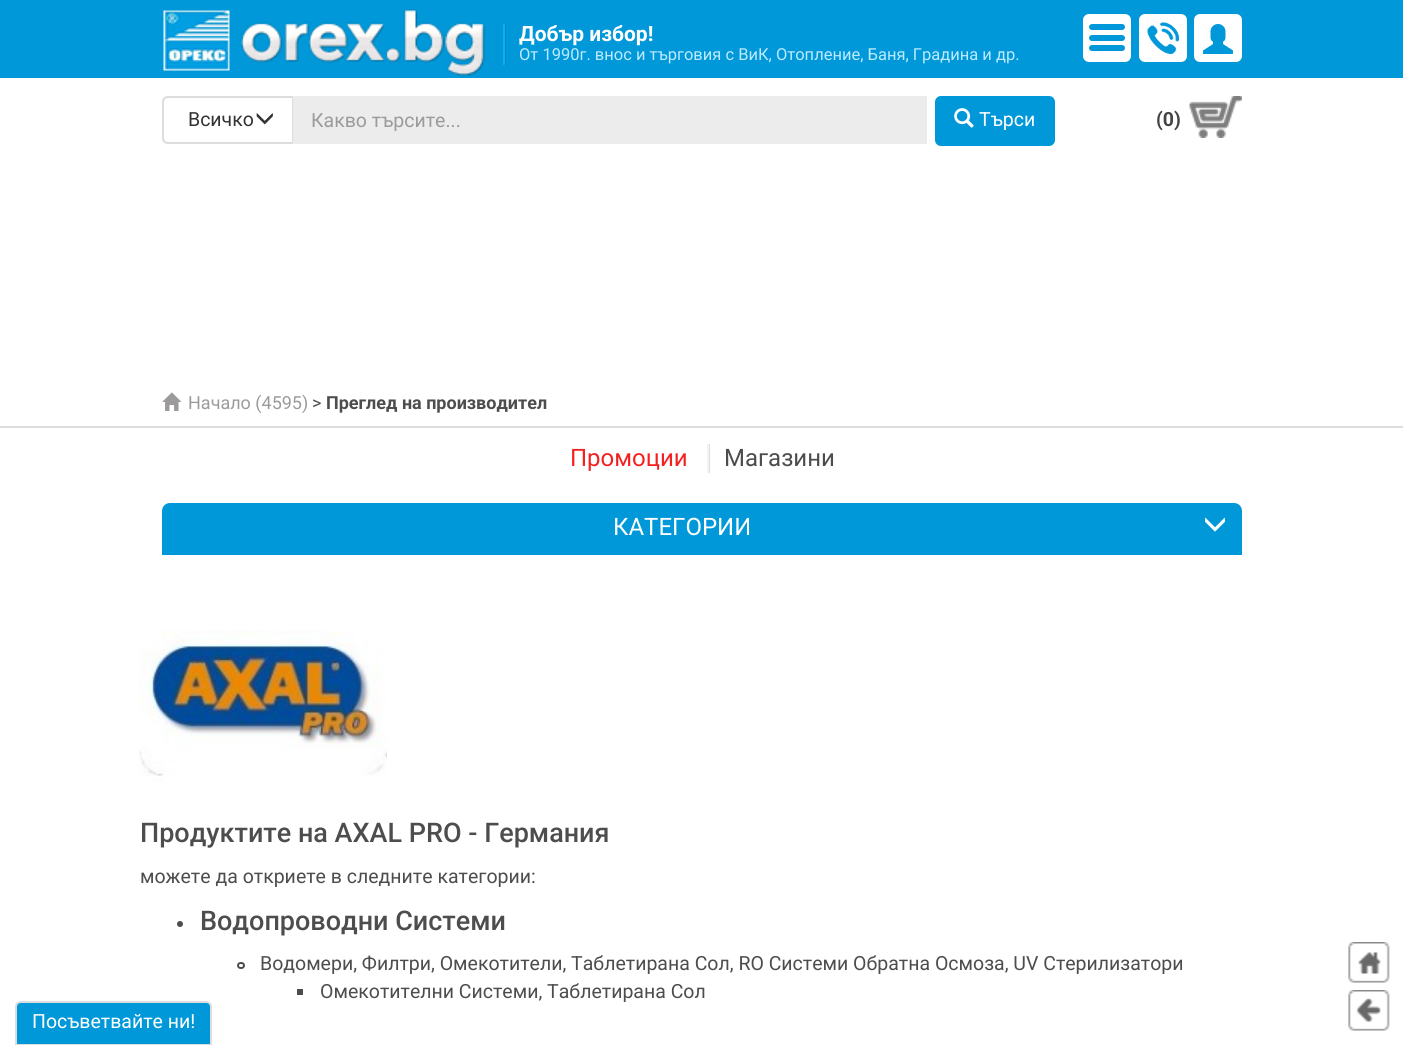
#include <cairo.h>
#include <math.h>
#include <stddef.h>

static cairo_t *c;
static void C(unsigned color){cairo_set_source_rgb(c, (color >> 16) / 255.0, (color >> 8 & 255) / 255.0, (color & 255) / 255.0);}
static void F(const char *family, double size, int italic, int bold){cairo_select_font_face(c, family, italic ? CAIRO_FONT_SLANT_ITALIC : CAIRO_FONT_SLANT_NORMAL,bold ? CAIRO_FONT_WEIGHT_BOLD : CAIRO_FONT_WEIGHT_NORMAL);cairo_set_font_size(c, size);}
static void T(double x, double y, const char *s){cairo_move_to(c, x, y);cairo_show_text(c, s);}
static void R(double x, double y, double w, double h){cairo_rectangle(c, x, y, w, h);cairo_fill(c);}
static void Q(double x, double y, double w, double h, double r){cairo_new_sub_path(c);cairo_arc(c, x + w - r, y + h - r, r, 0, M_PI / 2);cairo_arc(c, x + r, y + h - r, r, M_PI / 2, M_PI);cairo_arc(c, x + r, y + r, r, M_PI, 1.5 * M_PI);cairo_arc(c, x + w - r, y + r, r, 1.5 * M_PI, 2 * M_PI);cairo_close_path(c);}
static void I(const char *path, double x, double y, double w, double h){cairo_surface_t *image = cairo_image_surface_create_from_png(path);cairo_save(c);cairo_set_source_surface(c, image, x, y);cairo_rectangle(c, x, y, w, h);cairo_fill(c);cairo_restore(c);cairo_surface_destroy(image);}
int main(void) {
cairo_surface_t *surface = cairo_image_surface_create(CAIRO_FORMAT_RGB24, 1403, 1045);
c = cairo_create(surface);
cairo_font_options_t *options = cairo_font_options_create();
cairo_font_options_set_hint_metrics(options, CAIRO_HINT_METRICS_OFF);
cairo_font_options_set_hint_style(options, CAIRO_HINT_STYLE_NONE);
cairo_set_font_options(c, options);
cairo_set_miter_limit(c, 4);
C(0xffffff);
cairo_paint(c);
C(0x0098d9);
R(0,0,1403,78);
I("1.png",163,9,322,68);
C(0x0089c4);
R(505,24,1,41);
C(0x13acee);
R(503,24,2,41);
F("Roboto",21,0,1);
C(0xffffff);
T(519,41,"Добър избор!");
F("Roboto",16.5,0,0);
C(0xbcebff);
T(519,60,"От 1990г. внос и търговия с ВиК, Отопление, Баня, Градина и др.");
C(0xffffff);
Q(1083,14,48,48,6);
cairo_fill(c);
C(0x0098d9);
Q(1089,24,36,6,3);
cairo_fill(c);
Q(1089,35,36,6,3);
cairo_fill(c);
Q(1089,45,36,6,3);
cairo_fill(c);
C(0xffffff);
Q(1139,14,48,48,6);
cairo_fill(c);
I("2.png",1147,22,32,32);
Q(1194,14,48,48,6);
cairo_fill(c);
I("3.png",1203,24,30,30);
cairo_new_path(c);
cairo_move_to(c,168,97);
cairo_line_to(c,293,97);
cairo_line_to(c,293,143);
cairo_line_to(c,168,143);
cairo_curve_to(c,165,143,163,141,163,138);
cairo_line_to(c,163,102);
cairo_curve_to(c,163,99,165,97,168,97);
cairo_close_path(c);
C(0xdddddd);
cairo_stroke(c);
F("Roboto",19.5,0,0);
C(0x333333);
T(188,126,"Всичко");
I("4.png",256,113,17,12);
C(0xececec);
R(293,96,634,48);
C(0x9d9a9b);
T(311,127,"Какво търсите...");
C(0x0098d9);
Q(935,96,120,50,6);
cairo_fill(c);
I("5.png",954,108,20,20);
C(0xffffff);
T(979,126,"Търси");
F("Roboto",19.5,0,1);
C(0x444444);
T(1156,126,"(0)");
I("6.png",1189,96,53,42);
C(0xdddddd);
R(0,426,1403,2);
I("7.png",162,392,20,19);
F("Roboto",18,0,0);
C(0x9d9a9b);
T(188,409,"Начало (4595)");
C(0x4d4d4d);
T(312,409,">");
F("Roboto",18,0,1);
T(326,409,"Преглед на производител");
C(0x0098d9);
cairo_new_path(c);
cairo_move_to(c,21,1002);
cairo_line_to(c,206,1002);
cairo_curve_to(c,209,1002,211,1004,211,1007);
cairo_line_to(c,211,1045);
cairo_line_to(c,16,1045);
cairo_line_to(c,16,1007);
cairo_curve_to(c,16,1004,18,1002,21,1002);
cairo_close_path(c);
cairo_fill_preserve(c);
C(0xdddddd);
cairo_stroke(c);
F("Roboto",19.5,0,0);
C(0xffffff);
T(32,1028,"Посъветвайте ни!");
F("Roboto",24,0,0);
C(0xf42121);
T(570,466,"Промоции");
C(0x4d4d4d);
T(724,466,"Магазини");
C(0xdfdfdf);
R(709,444,1,29);
C(0xf3f3f3);
R(707,444,2,29);
C(0x0098d9);
cairo_new_path(c);
cairo_move_to(c,170,503);
cairo_line_to(c,1234,503);
cairo_curve_to(c,1238.5,503,1242,506.5,1242,511);
cairo_line_to(c,1242,555);
cairo_line_to(c,162,555);
cairo_line_to(c,162,511);
cairo_curve_to(c,162,506.5,165.5,503,170,503);
cairo_close_path(c);
cairo_fill(c);
C(0xffffff);
T(613,535,"КАТЕГОРИИ");
I("8.png",1205,517,20,15);
I("9.png",139,630,248,151);
F("Roboto Medium",27,0,0);
C(0x4d4d4d);
T(140,842,"Продуктите на AXAL PRO - Германия");
F("Roboto",19.5,0,0);
T(140,883,"можете да откриете в следните категории:");
cairo_new_path(c);
cairo_arc(c,180,924,3,0,2 * M_PI);
cairo_fill(c);
F("Roboto Medium",27,0,0);
T(200,930,"Водопроводни Системи");
Q(238,963,6,5,2.5);
cairo_stroke(c);
F("Roboto",19.5,0,0);
T(260,970,"Водомери, Филтри, Омекотители, Таблетирана Сол, RO Системи Обратна Осмоза, UV Стерилизатори");
R(297,989,6,6);
T(320,998,"Омекотителни Системи, Таблетирана Сол");
I("10.png",1348,942,42,41);
I("11.png",1348,990,42,41);
cairo_surface_write_to_png(surface, "o.png");
cairo_font_options_destroy(options);
cairo_destroy(c);
cairo_surface_destroy(surface);
return 0;
}
